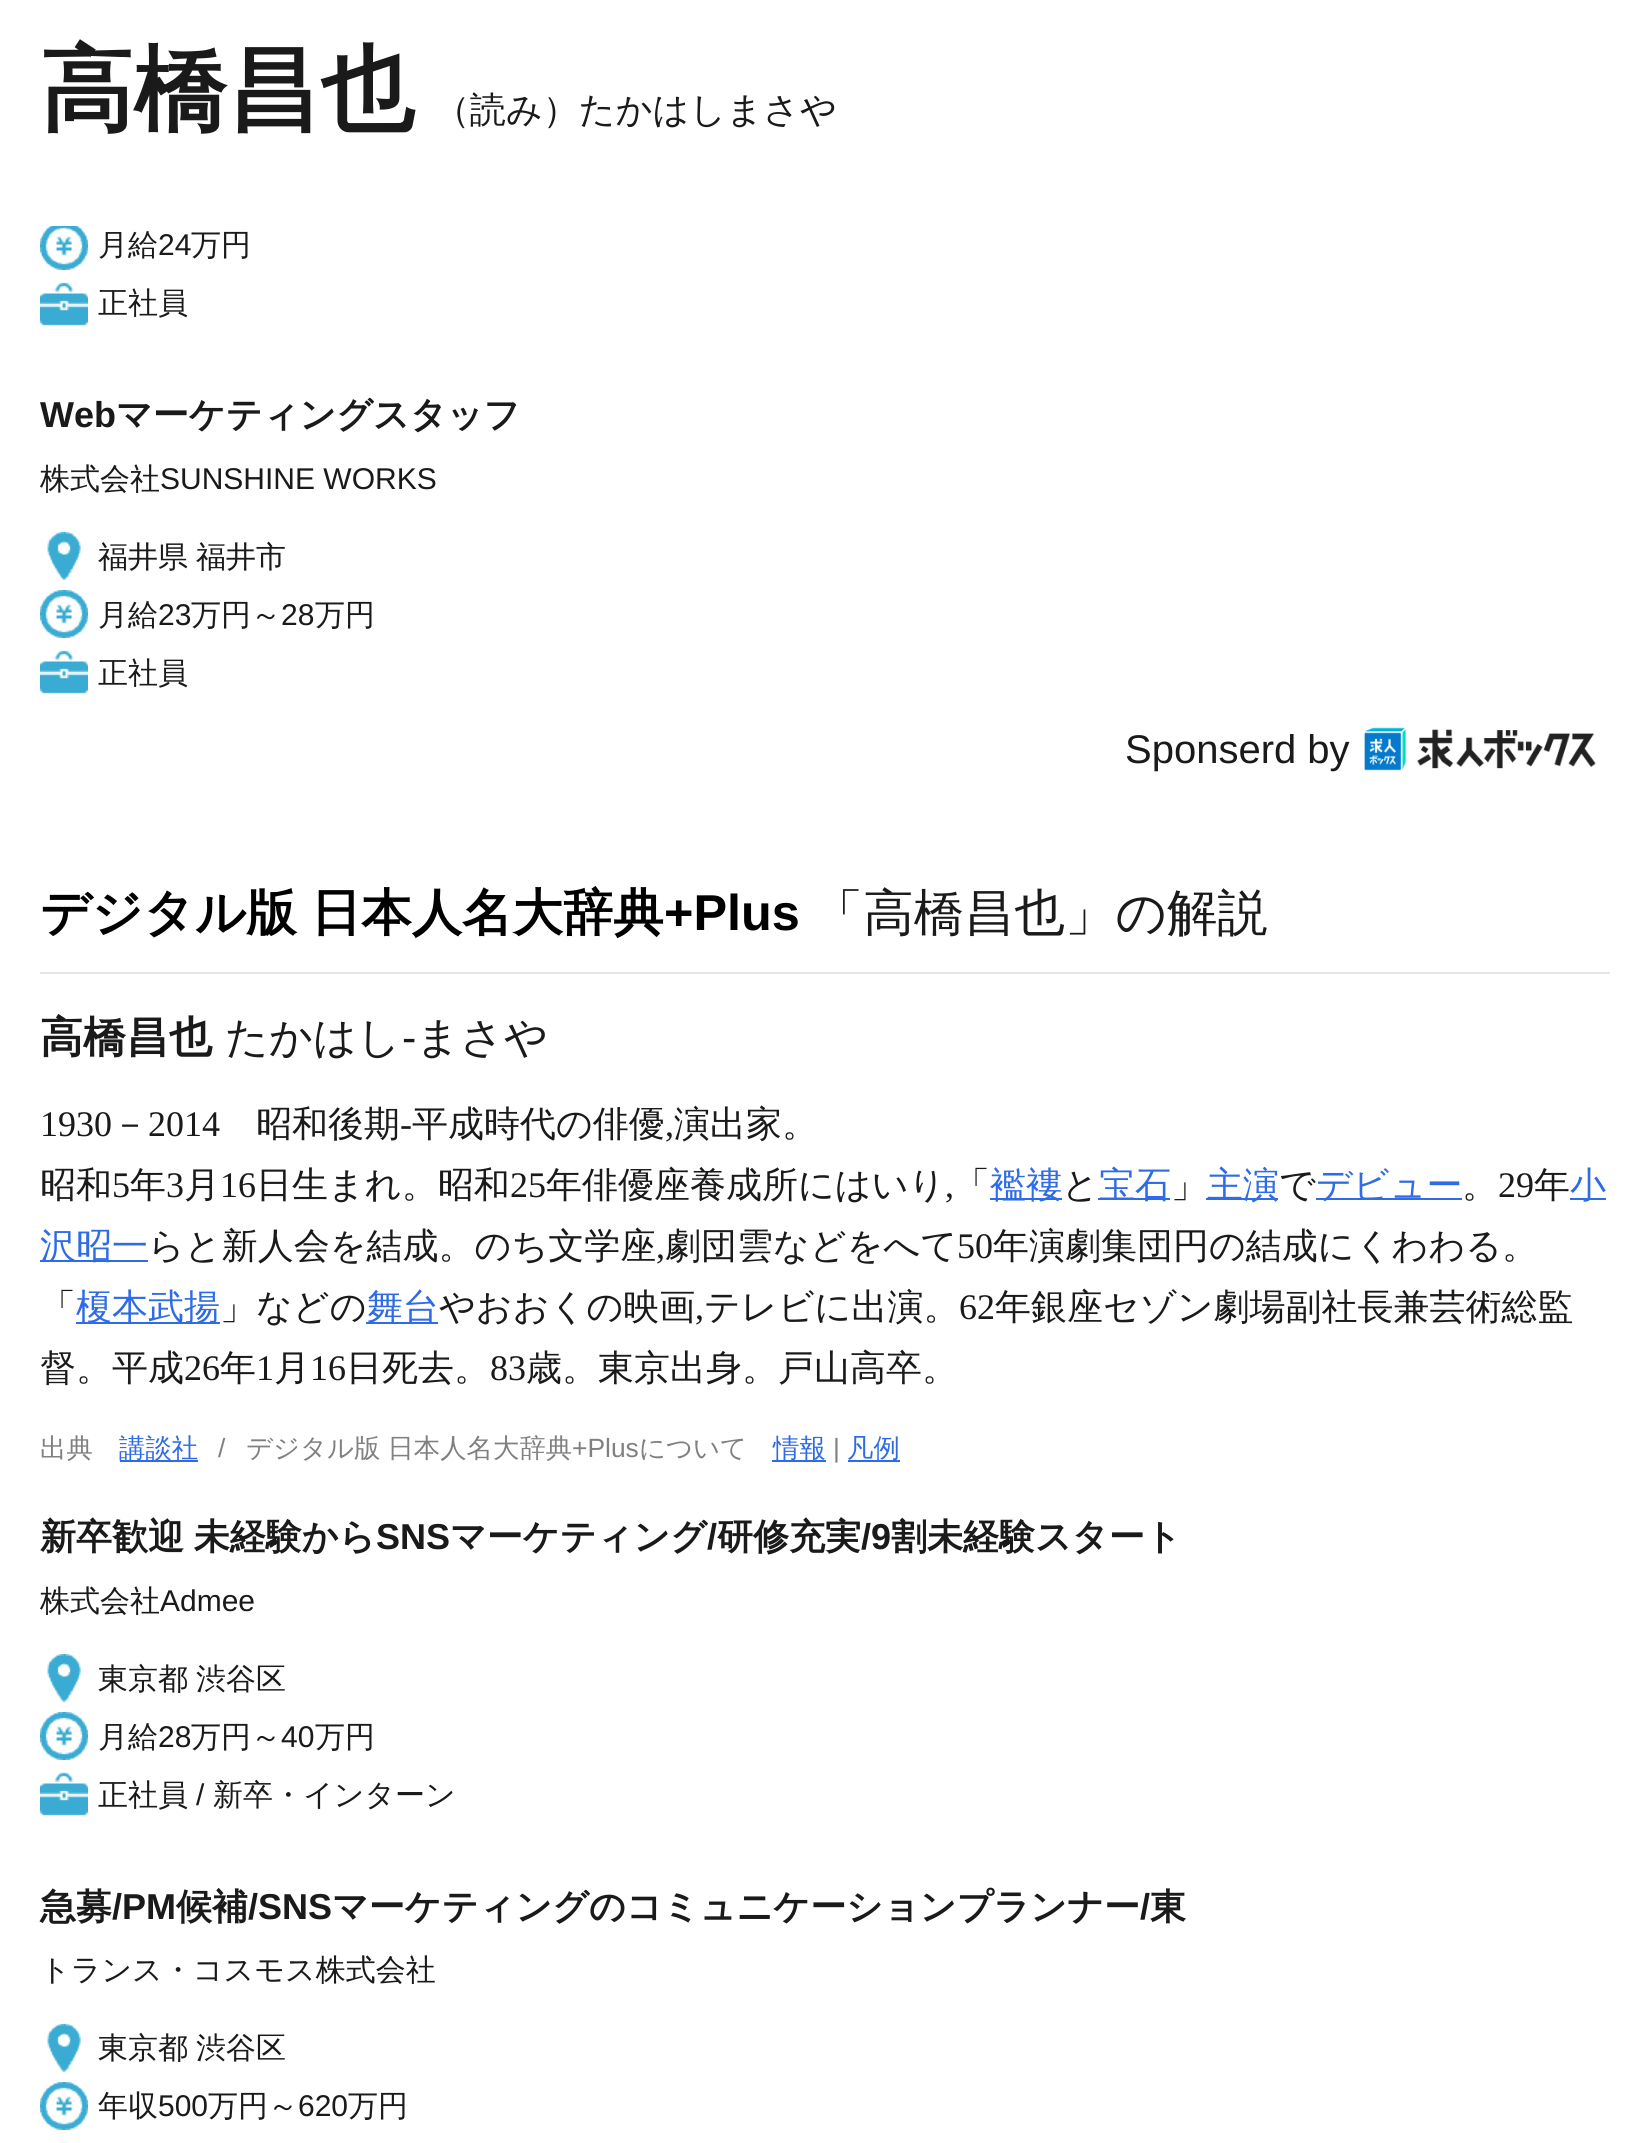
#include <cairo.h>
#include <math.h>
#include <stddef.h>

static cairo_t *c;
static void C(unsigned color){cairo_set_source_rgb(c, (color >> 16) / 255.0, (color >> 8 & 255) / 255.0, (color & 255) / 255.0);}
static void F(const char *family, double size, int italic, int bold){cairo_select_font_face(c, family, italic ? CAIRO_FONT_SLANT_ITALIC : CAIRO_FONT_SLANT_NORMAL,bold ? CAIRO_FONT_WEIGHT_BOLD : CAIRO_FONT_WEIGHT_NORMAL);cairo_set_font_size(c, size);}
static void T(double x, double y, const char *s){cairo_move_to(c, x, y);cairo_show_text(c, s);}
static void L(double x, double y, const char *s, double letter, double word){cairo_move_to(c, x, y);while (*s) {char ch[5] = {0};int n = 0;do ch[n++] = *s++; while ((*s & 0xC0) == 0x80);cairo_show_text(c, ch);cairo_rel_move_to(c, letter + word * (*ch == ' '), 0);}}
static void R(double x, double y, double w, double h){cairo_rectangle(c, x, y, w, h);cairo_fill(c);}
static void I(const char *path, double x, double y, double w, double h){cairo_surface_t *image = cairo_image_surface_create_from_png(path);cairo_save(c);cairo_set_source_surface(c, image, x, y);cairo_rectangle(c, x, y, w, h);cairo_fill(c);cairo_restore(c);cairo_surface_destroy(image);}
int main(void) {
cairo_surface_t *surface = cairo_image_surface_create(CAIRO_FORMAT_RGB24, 1650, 2143);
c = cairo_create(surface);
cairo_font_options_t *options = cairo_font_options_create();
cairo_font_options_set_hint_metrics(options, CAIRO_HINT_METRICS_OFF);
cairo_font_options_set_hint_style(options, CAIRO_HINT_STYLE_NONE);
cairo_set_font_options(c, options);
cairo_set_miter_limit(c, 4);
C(0xffffff);
cairo_paint(c);
F("WenQuanYi Zen Hei",93.5,0,1);
C(0x1a1a1a);
T(40,122,"高橋昌也");
F("WenQuanYi Zen Hei Medium",36,0,0);
T(434,122,"（読み）たかはしまさや");
I("1.png",40,226,48,44);
F("WenQuanYi Zen Hei Medium",30,0,0);
T(98,255,"月給");
F("Liberation Sans",30,0,0);
T(158,255,"24");
F("WenQuanYi Zen Hei Medium",30,0,0);
T(191,255,"万円");
I("2.png",40,282,48,44);
T(98,313,"正社員");
F("Liberation Sans",36,0,1);
T(40,427,"Web");
F("WenQuanYi Zen Hei",36,0,1);
T(116,427,"マーケティングスタッフ");
F("WenQuanYi Zen Hei Medium",30,0,0);
T(40,489,"株式会社");
F("Liberation Sans",30,0,0);
T(160,489,"SUNSHINE WORKS");
I("3.png",47,532,34,48);
F("WenQuanYi Zen Hei Medium",30,0,0);
L(98,567,"福井県 福井市",0,-1);
I("4.png",40,590,48,48);
T(98,625,"月給");
F("Liberation Sans",30,0,0);
T(158,625,"23");
F("WenQuanYi Zen Hei Medium",30,0,0);
T(191,625,"万円～");
F("Liberation Sans",30,0,0);
T(281,625,"28");
F("WenQuanYi Zen Hei Medium",30,0,0);
T(315,625,"万円");
I("2.png",40,650,48,44);
T(98,683,"正社員");
F("Liberation Sans",40,0,0);
T(1125,763,"Sponserd by");
I("5.png",1364,727,232,44);
C(0xe6e6e6);
R(40,972,1570,2);
F("WenQuanYi Zen Hei",50.4,0,1);
C(0x000000);
L(40,930,"デジタル版 日本人名大辞典",0,-1);
F("Liberation Sans",50.4,0,1);
T(664,930,"+Plus");
F("WenQuanYi Zen Hei Medium",50.4,0,0);
C(0x1a1a1a);
T(813,930,"「高橋昌也」の解説");
F("WenQuanYi Zen Hei",43,0,1);
T(40,1052,"高橋昌也");
F("WenQuanYi Zen Hei Medium",43,0,0);
T(225,1052,"たかはし");
F("Liberation Sans",43,0,0);
T(402,1052,"-");
F("WenQuanYi Zen Hei Medium",43,0,0);
T(416,1052,"まさや");
F("Liberation Serif",36,0,0);
T(40,1136,"1930");
F("WenQuanYi Zen Hei Medium",36,0,0);
T(112,1136,"－");
F("Liberation Serif",36,0,0);
T(148,1136,"2014");
F("WenQuanYi Zen Hei Medium",36,0,0);
T(256,1136,"昭和後期");
T(412,1136,"平成時代の俳優");
T(674,1136,"演出家。");
F("Liberation Serif",36,0,0);
T(400,1136,"-");
T(665,1136,",");
F("WenQuanYi Zen Hei Medium",36,0,0);
T(40,1197,"昭和");
F("Liberation Serif",36,0,0);
T(112,1197,"5");
F("WenQuanYi Zen Hei Medium",36,0,0);
T(130,1197,"年");
F("Liberation Serif",36,0,0);
T(166,1197,"3");
F("WenQuanYi Zen Hei Medium",36,0,0);
T(184,1197,"月");
F("Liberation Serif",36,0,0);
T(220,1197,"16");
F("WenQuanYi Zen Hei Medium",36,0,0);
T(256,1197,"日生まれ。昭和");
F("Liberation Serif",36,0,0);
T(510,1197,"25");
F("WenQuanYi Zen Hei Medium",36,0,0);
T(546,1197,"年俳優座養成所にはいり");
F("Liberation Serif",36,0,0);
T(945,1197,",");
F("WenQuanYi Zen Hei Medium",36,0,0);
T(954,1197,"「");
C(0x2f6be6);
R(990,1198,72,2);
T(990,1197,"襤褸");
C(0x1a1a1a);
T(1062,1197,"と");
C(0x2f6be6);
R(1098,1198,72,2);
T(1099,1197,"宝石");
C(0x1a1a1a);
T(1171,1197,"」");
C(0x2f6be6);
R(1206,1198,72,2);
T(1207,1197,"主演");
C(0x1a1a1a);
T(1279,1197,"で");
C(0x2f6be6);
R(1316,1198,146,2);
T(1316,1197,"デビュー");
C(0x1a1a1a);
T(1462,1197,"。");
F("Liberation Serif",36,0,0);
T(1498,1197,"29");
F("WenQuanYi Zen Hei Medium",36,0,0);
T(1534,1197,"年");
C(0x2f6be6);
R(1570,1198,36,2);
T(1570,1197,"小");
R(40,1260,108,2);
T(40,1258,"沢昭一");
C(0x1a1a1a);
T(148,1258,"らと新人会を結成。のち文学座");
F("Liberation Serif",36,0,0);
T(656,1258,",");
F("WenQuanYi Zen Hei Medium",36,0,0);
T(665,1258,"劇団雲などをへて");
F("Liberation Serif",36,0,0);
T(957,1258,"50");
F("WenQuanYi Zen Hei Medium",36,0,0);
T(993,1258,"年演劇集団円の結成にくわわる。");
T(40,1319,"「");
C(0x2f6be6);
R(76,1322,144,2);
T(76,1319,"榎本武揚");
C(0x1a1a1a);
T(220,1319,"」などの");
C(0x2f6be6);
R(366,1322,72,2);
T(367,1319,"舞台");
C(0x1a1a1a);
T(439,1319,"やおおくの映画");
F("Liberation Serif",36,0,0);
T(695,1319,",");
F("WenQuanYi Zen Hei Medium",36,0,0);
T(704,1319,"テレビに出演。");
F("Liberation Serif",36,0,0);
T(959,1319,"62");
F("WenQuanYi Zen Hei Medium",36,0,0);
T(995,1319,"年銀座セゾン劇場副社長兼芸術総監");
T(40,1380,"督。平成");
F("Liberation Serif",36,0,0);
T(184,1380,"26");
F("WenQuanYi Zen Hei Medium",36,0,0);
T(220,1380,"年");
F("Liberation Serif",36,0,0);
T(256,1380,"1");
F("WenQuanYi Zen Hei Medium",36,0,0);
T(274,1380,"月");
F("Liberation Serif",36,0,0);
T(310,1380,"16");
F("WenQuanYi Zen Hei Medium",36,0,0);
T(346,1380,"日死去。");
F("Liberation Serif",36,0,0);
T(490,1380,"83");
F("WenQuanYi Zen Hei Medium",36,0,0);
T(526,1380,"歳。東京出身。戸山高卒。");
F("WenQuanYi Zen Hei Medium",26.4,0,0);
C(0x808080);
T(40,1457,"出典");
C(0x2f6be6);
R(120,1460,78,2);
T(119,1457,"講談社");
F("Liberation Sans",26.4,0,0);
C(0x808080);
T(218,1457,"/");
F("WenQuanYi Zen Hei Medium",26.4,0,0);
L(246,1457,"デジタル版 日本人名大辞典",0,-1);
F("Liberation Sans",26.4,0,0);
T(572,1457,"+Plus");
F("WenQuanYi Zen Hei Medium",26.4,0,0);
T(639,1457,"について");
C(0x2f6be6);
R(772,1460,54,2);
T(773,1457,"情報");
F("Liberation Sans",26.4,0,0);
C(0x808080);
T(833,1457,"|");
C(0x2f6be6);
R(848,1460,52,2);
F("WenQuanYi Zen Hei Medium",26.4,0,0);
T(847,1457,"凡例");
F("WenQuanYi Zen Hei",36,0,1);
C(0x1a1a1a);
L(40,1549,"新卒歓迎 未経験から",0,-1);
F("Liberation Sans",36,0,1);
T(376,1549,"SNS");
F("WenQuanYi Zen Hei",36,0,1);
T(450,1549,"マーケティング");
F("Liberation Sans",36,0,1);
T(707,1549,"/");
F("WenQuanYi Zen Hei",36,0,1);
T(717,1549,"研修充実");
F("Liberation Sans",36,0,1);
T(861,1549,"/9");
F("WenQuanYi Zen Hei",36,0,1);
T(891,1549,"割未経験スタート");
F("WenQuanYi Zen Hei Medium",30,0,0);
T(40,1611,"株式会社");
F("Liberation Sans",30,0,0);
T(160,1611,"Admee");
I("3.png",47,1654,34,48);
F("WenQuanYi Zen Hei Medium",30,0,0);
L(98,1689,"東京都 渋谷区",0,-1);
I("4.png",40,1712,48,48);
T(98,1747,"月給");
F("Liberation Sans",30,0,0);
T(158,1747,"28");
F("WenQuanYi Zen Hei Medium",30,0,0);
T(191,1747,"万円～");
F("Liberation Sans",30,0,0);
T(281,1747,"40");
F("WenQuanYi Zen Hei Medium",30,0,0);
T(315,1747,"万円");
I("2.png",40,1772,48,44);
T(98,1805,"正社員");
F("Liberation Sans",30,0,0);
T(196,1805,"/");
F("WenQuanYi Zen Hei Medium",30,0,0);
T(213,1805,"新卒・インターン");
F("WenQuanYi Zen Hei",36,0,1);
T(40,1919,"急募");
F("Liberation Sans",36,0,1);
T(112,1919,"/PM");
F("WenQuanYi Zen Hei",36,0,1);
T(176,1919,"候補");
F("Liberation Sans",36,0,1);
T(248,1919,"/SNS");
F("WenQuanYi Zen Hei",36,0,1);
T(332,1919,"マーケティングのコミュニケーションプランナー");
F("Liberation Sans",36,0,1);
T(1140,1919,"/");
F("WenQuanYi Zen Hei",36,0,1);
T(1150,1919,"東");
F("WenQuanYi Zen Hei Medium",30,0,0);
T(40,1980,"トランス・コスモス株式会社");
I("3.png",47,2024,34,48);
L(98,2058,"東京都 渋谷区",0,-1);
I("4.png",40,2082,48,48);
T(98,2116,"年収");
F("Liberation Sans",30,0,0);
T(158,2116,"500");
F("WenQuanYi Zen Hei Medium",30,0,0);
T(208,2116,"万円～");
F("Liberation Sans",30,0,0);
T(298,2116,"620");
F("WenQuanYi Zen Hei Medium",30,0,0);
T(348,2116,"万円");
I("6.png",59,2142,10,1);
cairo_surface_write_to_png(surface, "o.png");
cairo_font_options_destroy(options);
cairo_destroy(c);
cairo_surface_destroy(surface);
return 0;
}
